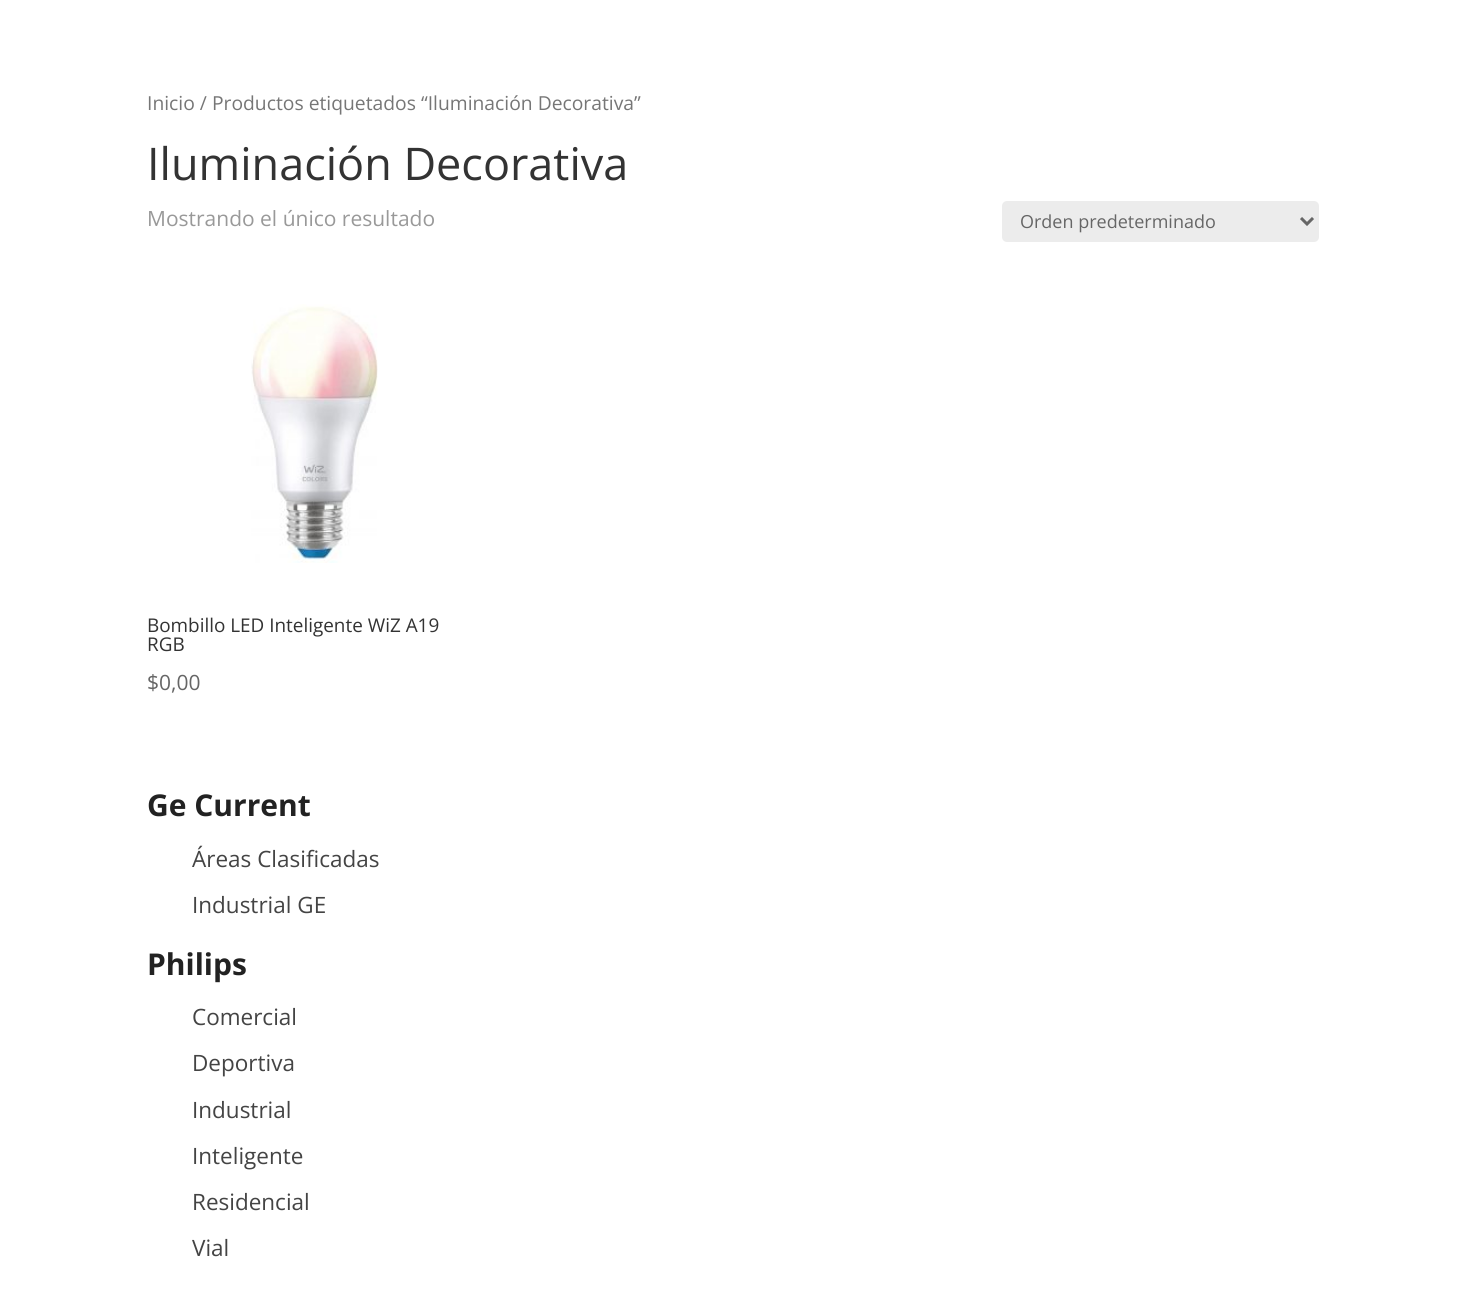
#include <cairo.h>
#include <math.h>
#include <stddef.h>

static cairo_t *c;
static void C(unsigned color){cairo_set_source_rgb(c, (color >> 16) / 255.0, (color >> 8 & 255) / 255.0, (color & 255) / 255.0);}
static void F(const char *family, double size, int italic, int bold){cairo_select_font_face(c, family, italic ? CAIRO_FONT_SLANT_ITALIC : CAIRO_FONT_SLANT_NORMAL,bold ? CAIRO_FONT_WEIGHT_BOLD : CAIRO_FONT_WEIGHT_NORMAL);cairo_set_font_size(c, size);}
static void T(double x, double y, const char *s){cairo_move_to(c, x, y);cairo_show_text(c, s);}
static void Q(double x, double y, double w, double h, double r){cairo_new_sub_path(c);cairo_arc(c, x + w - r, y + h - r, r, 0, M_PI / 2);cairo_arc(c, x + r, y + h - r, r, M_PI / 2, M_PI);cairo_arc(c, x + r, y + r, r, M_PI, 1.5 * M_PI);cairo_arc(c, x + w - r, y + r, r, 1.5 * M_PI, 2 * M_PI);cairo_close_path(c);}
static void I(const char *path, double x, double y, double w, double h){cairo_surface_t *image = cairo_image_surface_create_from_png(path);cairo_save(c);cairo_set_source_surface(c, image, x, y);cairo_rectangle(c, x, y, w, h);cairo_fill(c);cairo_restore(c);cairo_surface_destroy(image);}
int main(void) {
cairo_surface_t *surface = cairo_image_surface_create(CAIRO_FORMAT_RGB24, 1465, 1290);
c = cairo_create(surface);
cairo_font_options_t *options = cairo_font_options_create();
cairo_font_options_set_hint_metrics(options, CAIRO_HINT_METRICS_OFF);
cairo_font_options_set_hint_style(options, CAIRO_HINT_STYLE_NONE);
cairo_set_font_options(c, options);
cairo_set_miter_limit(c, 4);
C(0xffffff);
cairo_paint(c);
F("Open Sans",19.3,0,0);
C(0x767676);
T(147,110,"Inicio / Productos etiquetados “Iluminación Decorativa”");
F("Open Sans",45,0,0);
C(0x333333);
T(147,180,"Iluminación Decorativa");
F("Open Sans",21,0,0);
C(0x999999);
T(147,226,"Mostrando el único resultado");
C(0xececec);
Q(1002,201,317,41,5);
cairo_fill(c);
cairo_new_path(c);
cairo_move_to(c,1301,218);
cairo_line_to(c,1307,224);
cairo_line_to(c,1313,218);
C(0x666666);
cairo_set_line_width(c,3);
cairo_stroke(c);
F("Open Sans",18,0,0);
T(1020,228,"Orden predeterminado");
I("1.png",251,304,127,259);
F("Open Sans",18.9,0,0);
C(0x333333);
T(147,632,"Bombillo LED Inteligente WiZ A19");
T(147,651,"RGB");
F("Open Sans",21,0,0);
C(0x666666);
T(147,690,"$0,00");
F("Open Sans",30,0,1);
C(0x222222);
T(147,816,"Ge Current");
F("Open Sans",22.5,0,0);
C(0x444444);
T(192,867,"Áreas Clasificadas");
T(192,913,"Industrial GE");
F("Open Sans",30,0,1);
C(0x222222);
T(147,975,"Philips");
F("Open Sans",22.5,0,0);
C(0x444444);
T(192,1025,"Comercial");
T(192,1071,"Deportiva");
T(192,1118,"Industrial");
T(192,1164,"Inteligente");
T(192,1210,"Residencial");
T(192,1256,"Vial");
cairo_surface_write_to_png(surface, "o.png");
cairo_font_options_destroy(options);
cairo_destroy(c);
cairo_surface_destroy(surface);
return 0;
}
